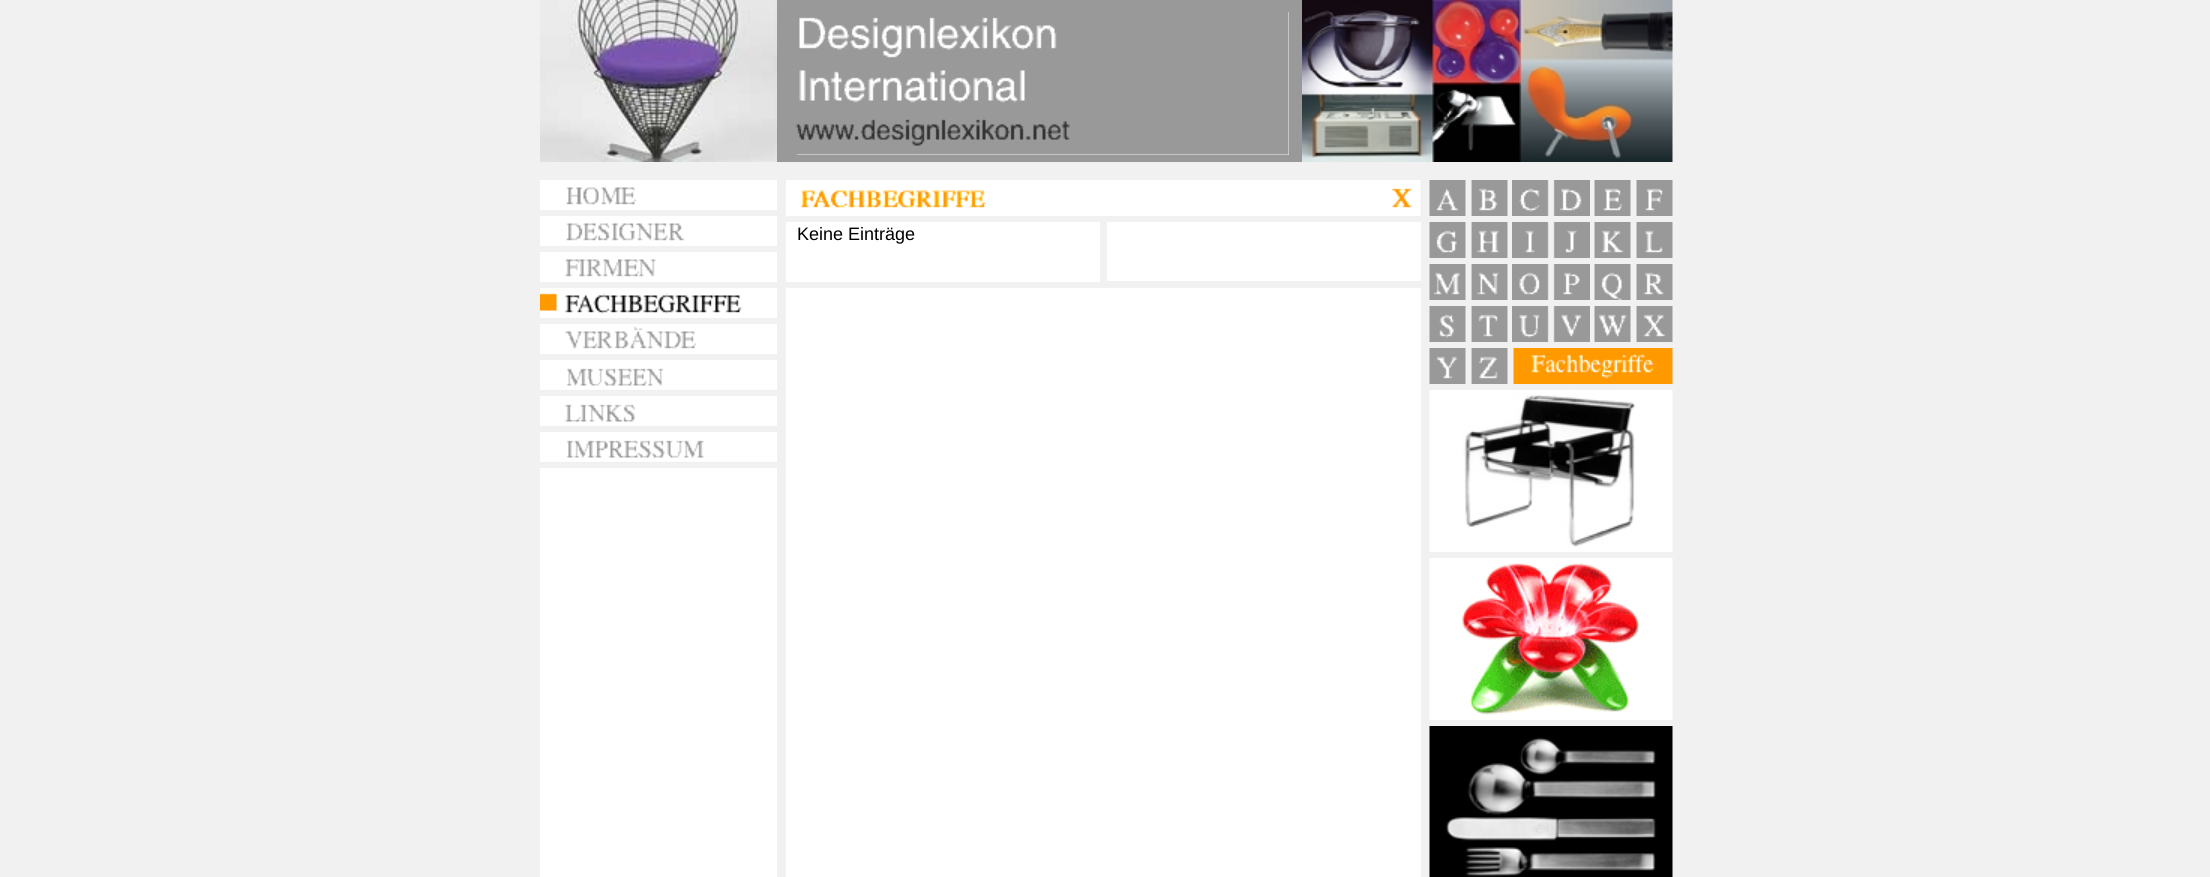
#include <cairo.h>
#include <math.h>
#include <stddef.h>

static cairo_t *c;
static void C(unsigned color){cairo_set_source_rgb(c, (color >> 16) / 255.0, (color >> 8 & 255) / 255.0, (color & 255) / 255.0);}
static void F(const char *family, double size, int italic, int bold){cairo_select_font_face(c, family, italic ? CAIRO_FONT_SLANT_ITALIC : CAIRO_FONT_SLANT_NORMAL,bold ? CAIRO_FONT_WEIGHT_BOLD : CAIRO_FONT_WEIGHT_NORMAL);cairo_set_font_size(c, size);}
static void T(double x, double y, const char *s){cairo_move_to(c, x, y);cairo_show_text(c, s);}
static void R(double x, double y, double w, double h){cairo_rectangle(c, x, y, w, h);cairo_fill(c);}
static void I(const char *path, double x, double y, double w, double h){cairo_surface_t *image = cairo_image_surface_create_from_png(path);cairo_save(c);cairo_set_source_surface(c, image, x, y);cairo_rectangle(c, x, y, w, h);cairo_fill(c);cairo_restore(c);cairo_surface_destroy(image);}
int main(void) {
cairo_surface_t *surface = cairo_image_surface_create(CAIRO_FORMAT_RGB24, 2210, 877);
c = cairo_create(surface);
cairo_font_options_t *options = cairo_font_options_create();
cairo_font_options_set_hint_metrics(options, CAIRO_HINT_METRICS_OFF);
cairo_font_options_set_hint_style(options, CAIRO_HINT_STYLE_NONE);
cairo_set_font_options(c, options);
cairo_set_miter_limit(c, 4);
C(0xf1f1f1);
cairo_paint(c);
I("1.png",540,0,237,162);
C(0x999999);
R(777,0,525,12);
I("2.png",1302,0,371,162);
R(777,12,20,143);
I("3.png",796,12,493,143);
R(1289,12,13,143);
R(777,155,525,7);
I("4.png",540,180,237,30);
I("5.png",786,180,635,36);
I("6.png",1429,180,37,36);
I("7.png",1471,180,37,36);
I("8.png",1512,180,37,36);
I("9.png",1553,180,37,36);
I("10.png",1594,180,37,36);
I("11.png",1636,180,37,36);
I("12.png",540,216,237,30);
I("13.png",1429,222,37,36);
I("14.png",1471,222,37,36);
I("15.png",1512,222,37,36);
I("16.png",1553,222,37,36);
I("17.png",1594,222,37,36);
I("18.png",1636,222,37,36);
I("19.png",540,252,237,30);
I("20.png",1429,264,37,36);
I("21.png",1471,264,37,36);
I("22.png",1512,264,37,36);
I("23.png",1553,264,37,36);
I("24.png",1594,264,37,36);
I("25.png",1636,264,37,36);
I("26.png",540,288,237,30);
C(0xffffff);
R(786,288,635,589);
I("27.png",1429,306,37,36);
I("28.png",1471,306,37,36);
I("29.png",1512,306,37,36);
I("30.png",1553,306,37,36);
I("31.png",1594,306,37,36);
I("32.png",1636,306,37,36);
I("33.png",540,324,237,30);
I("34.png",540,360,237,30);
I("35.png",1429,348,37,36);
I("36.png",1471,348,37,36);
I("37.png",1513,348,160,36);
I("38.png",540,396,237,30);
I("39.png",1429,390,244,162);
I("40.png",540,432,237,30);
R(540,468,237,409);
I("41.png",1429,558,244,162);
I("42.png",1429,726,244,151);
R(786,222,314,60);
F("Liberation Sans",18,0,0);
C(0x000000);
T(797,240,"Keine Einträge");
C(0xffffff);
R(1107,222,314,59);
cairo_surface_write_to_png(surface, "o.png");
cairo_font_options_destroy(options);
cairo_destroy(c);
cairo_surface_destroy(surface);
return 0;
}
